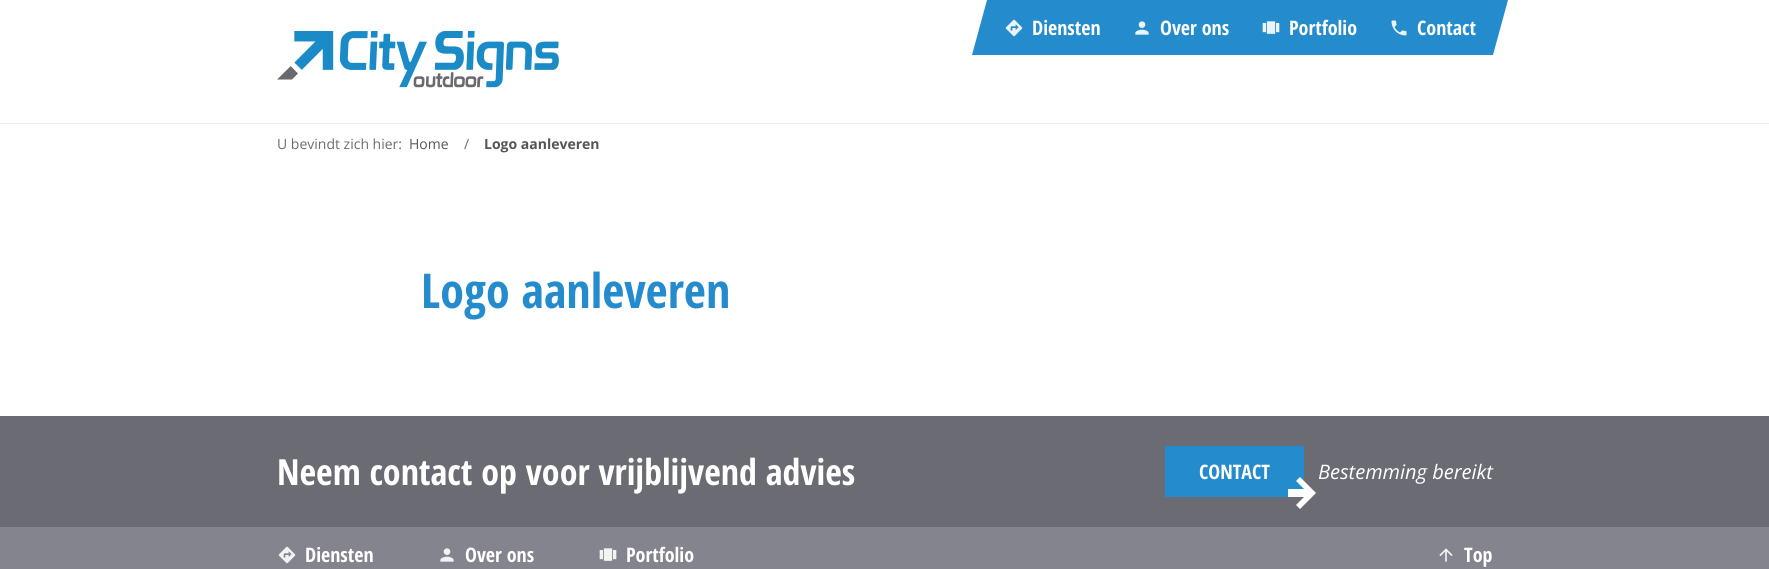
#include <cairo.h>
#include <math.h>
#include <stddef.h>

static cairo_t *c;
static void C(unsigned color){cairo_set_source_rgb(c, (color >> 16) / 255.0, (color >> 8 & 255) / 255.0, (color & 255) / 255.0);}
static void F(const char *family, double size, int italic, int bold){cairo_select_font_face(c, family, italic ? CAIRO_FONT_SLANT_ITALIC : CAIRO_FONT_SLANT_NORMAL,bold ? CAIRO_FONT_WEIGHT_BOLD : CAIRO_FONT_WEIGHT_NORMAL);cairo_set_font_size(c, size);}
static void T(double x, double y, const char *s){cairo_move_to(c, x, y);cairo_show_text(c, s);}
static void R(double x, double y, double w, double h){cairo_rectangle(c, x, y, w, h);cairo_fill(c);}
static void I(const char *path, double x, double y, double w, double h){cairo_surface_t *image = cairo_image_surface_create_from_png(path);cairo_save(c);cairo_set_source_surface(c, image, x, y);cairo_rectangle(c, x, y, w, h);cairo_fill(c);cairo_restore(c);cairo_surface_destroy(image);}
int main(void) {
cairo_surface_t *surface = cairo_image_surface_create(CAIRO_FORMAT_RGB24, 1769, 569);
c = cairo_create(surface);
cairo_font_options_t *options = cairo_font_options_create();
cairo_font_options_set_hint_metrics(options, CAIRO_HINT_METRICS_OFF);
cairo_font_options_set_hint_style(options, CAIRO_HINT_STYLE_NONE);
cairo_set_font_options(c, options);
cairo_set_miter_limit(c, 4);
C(0xffffff);
cairo_paint(c);
C(0x248ccc);
cairo_new_path(c);
cairo_move_to(c,987,0);
cairo_line_to(c,1003,0);
cairo_line_to(c,988,55);
cairo_line_to(c,972,55);
cairo_close_path(c);
cairo_fill(c);
cairo_new_path(c);
cairo_move_to(c,1492,0);
cairo_line_to(c,1508,0);
cairo_line_to(c,1493,55);
cairo_line_to(c,1477,55);
cairo_close_path(c);
cairo_fill(c);
R(988,0,504,55);
I("1.png",1005,19,18,18);
F("Open Sans Condensed",20,0,1);
C(0xffffff);
T(1032,35,"Diensten");
I("2.png",1135,21,14,14);
T(1160,35,"Over ons");
I("3.png",1262,21,18,13);
T(1289,35,"Portfolio");
I("4.png",1391,20,16,16);
T(1417,35,"Contact");
C(0xeeeeee);
R(0,123,1769,1);
I("5.png",277,31,282,57);
F("Open Sans",14,0,0);
C(0x6b6b74);
T(277,149,"U bevindt zich hier:");
C(0x555555);
T(409,149,"Home");
C(0x6b6b74);
T(464,149,"/");
F("Open Sans",14,0,1);
C(0x555555);
T(484,149,"Logo aanleveren");
F("Open Sans Condensed",48,0,1);
C(0x248ccc);
T(421,308,"Logo aanleveren");
C(0x6b6b74);
R(0,416,1769,111);
F("Open Sans Condensed",36,0,1);
C(0xffffff);
T(277,485,"Neem contact op voor vrijblijvend advies");
cairo_rectangle(c,1166,447,137,49);
C(0x248ccc);
cairo_stroke(c);
R(1167,448,135,47);
F("Open Sans Condensed",20,0,1);
C(0xffffff);
T(1199,479,"CONTACT");
cairo_new_path(c);
cairo_move_to(c,1288,497);
cairo_line_to(c,1304,497);
cairo_line_to(c,1296,505);
cairo_line_to(c,1300,509);
cairo_line_to(c,1316,493);
cairo_line_to(c,1300,477);
cairo_line_to(c,1296,481);
cairo_line_to(c,1304,489);
cairo_line_to(c,1288,489);
cairo_close_path(c);
cairo_fill(c);
F("Open Sans",20,1,0);
T(1318,479,"Bestemming bereikt");
C(0x84848e);
R(0,527,1769,42);
I("6.png",278,546,18,18);
F("Open Sans Condensed",20,0,1);
C(0xffffff);
T(305,562,"Diensten");
I("7.png",440,548,14,14);
T(465,562,"Over ons");
I("8.png",599,548,18,13);
T(626,562,"Portfolio");
I("9.png",1439,548,14,14);
T(1464,562,"Top");
cairo_surface_write_to_png(surface, "o.png");
cairo_font_options_destroy(options);
cairo_destroy(c);
cairo_surface_destroy(surface);
return 0;
}
